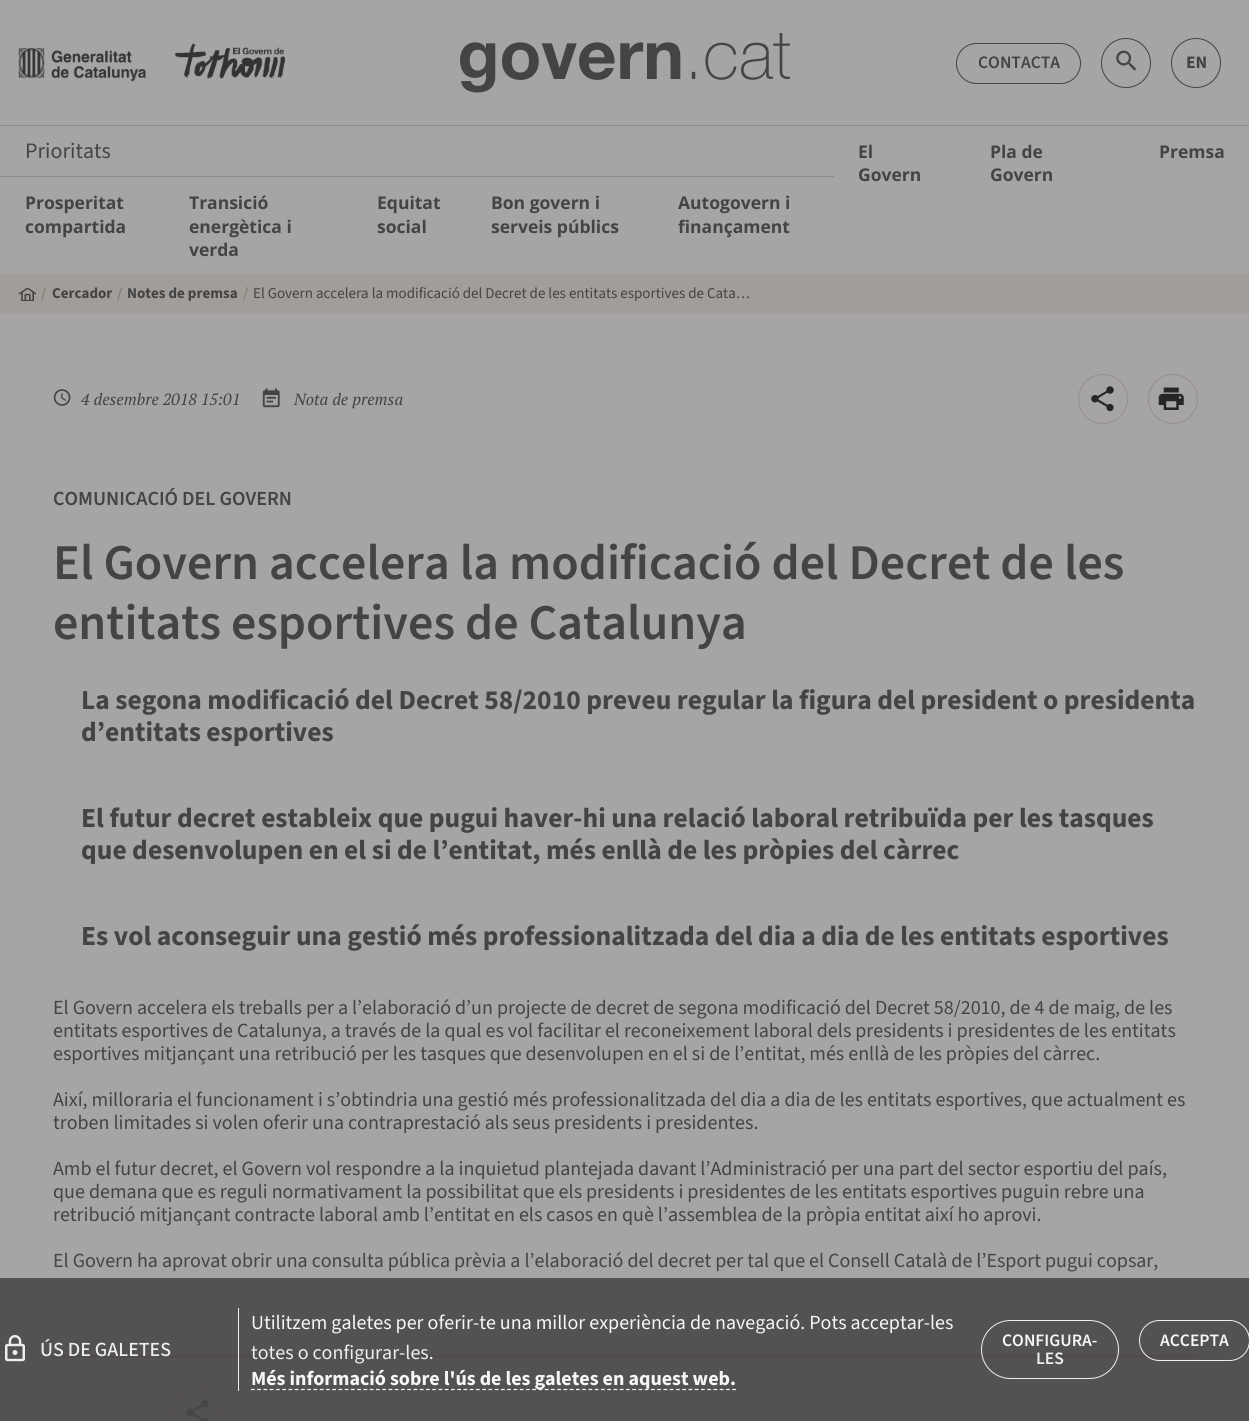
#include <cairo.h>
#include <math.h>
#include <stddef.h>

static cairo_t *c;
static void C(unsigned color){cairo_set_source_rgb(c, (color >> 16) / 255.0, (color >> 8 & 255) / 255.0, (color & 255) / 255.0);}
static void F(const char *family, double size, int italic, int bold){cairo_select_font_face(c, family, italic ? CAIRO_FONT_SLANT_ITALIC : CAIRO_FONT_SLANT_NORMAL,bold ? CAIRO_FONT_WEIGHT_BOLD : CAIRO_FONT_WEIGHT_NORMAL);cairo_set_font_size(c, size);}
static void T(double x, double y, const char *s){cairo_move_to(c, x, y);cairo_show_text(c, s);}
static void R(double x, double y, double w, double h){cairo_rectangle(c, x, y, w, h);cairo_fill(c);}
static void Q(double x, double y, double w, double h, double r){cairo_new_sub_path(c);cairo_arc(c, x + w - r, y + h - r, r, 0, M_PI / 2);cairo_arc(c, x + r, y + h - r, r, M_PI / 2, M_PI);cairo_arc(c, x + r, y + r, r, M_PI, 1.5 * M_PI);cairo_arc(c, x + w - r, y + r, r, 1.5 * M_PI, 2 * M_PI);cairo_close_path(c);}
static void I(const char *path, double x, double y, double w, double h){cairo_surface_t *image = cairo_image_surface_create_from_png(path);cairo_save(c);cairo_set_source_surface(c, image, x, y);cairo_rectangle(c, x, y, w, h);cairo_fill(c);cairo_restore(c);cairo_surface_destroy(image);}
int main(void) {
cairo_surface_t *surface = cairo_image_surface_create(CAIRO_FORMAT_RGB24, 1249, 1421);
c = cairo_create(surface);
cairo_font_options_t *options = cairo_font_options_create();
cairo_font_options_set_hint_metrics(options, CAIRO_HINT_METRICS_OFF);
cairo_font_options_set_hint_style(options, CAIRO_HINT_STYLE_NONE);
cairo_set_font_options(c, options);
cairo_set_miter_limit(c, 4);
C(0xa6a4a4);
cairo_paint(c);
I("1.png",18,43,267,39);
I("2.png",460,33,330,60);
Q(956.5,43.5,124,40,20);
C(0x444345);
cairo_set_line_width(c,1);
cairo_stroke(c);
F("Source Sans 3 SemiBold",17.5,0,0);
T(978,68,"CONTACTA");
cairo_new_path(c);
cairo_arc(c,1126,63,24.5,0,2 * M_PI);
cairo_stroke(c);
I("3.png",1116,50,21,21);
cairo_arc(c,1196,63,24.5,0,2 * M_PI);
cairo_stroke(c);
F("Source Sans 3",17.5,0,1);
T(1186,68,"EN");
C(0x8d8c8c);
R(0,125,1249,1);
R(0,176,834,1);
F("Source Sans 3",22,0,0);
C(0x444345);
T(25,158,"Prioritats");
F("Open Sans",17.5,0,1);
T(25,209,"Prosperitat");
T(25,233,"compartida");
T(189,209,"Transició");
T(189,233,"energètica i");
T(189,256,"verda");
T(377,209,"Equitat");
T(377,233,"social");
T(491,209,"Bon govern i");
T(491,233,"serveis públics");
T(678,209,"Autogovern i");
T(678,233,"finançament");
T(858,158,"El");
T(858,181,"Govern");
T(990,158,"Pla de");
T(990,181,"Govern");
T(1159,158,"Premsa");
C(0xa19e99);
R(0,274,1249,40);
I("4.png",19,288,17,13);
F("Source Sans 3",15,0,0);
C(0x767166);
T(41,298,"/");
F("Source Sans 3",15,0,1);
C(0x444345);
T(52,298,"Cercador");
F("Source Sans 3",15,0,0);
C(0x767166);
T(117,298,"/");
F("Source Sans 3",15,0,1);
C(0x444345);
T(127,298,"Notes de premsa");
F("Source Sans 3",15,0,0);
C(0x767166);
T(243,298,"/");
C(0x444345);
T(253,298,"El Govern accelera la modificació del Decret de les entitats esportives de Cata…");
I("5.png",53,389,18,17);
F("PT Serif",16.25,1,0);
T(81,405,"4 desembre 2018 15:01");
I("6.png",262,388,18,20);
T(294,405,"Nota de premsa");
cairo_new_path(c);
cairo_arc(c,1103,399,24.5,0,2 * M_PI);
C(0x93908b);
cairo_stroke(c);
I("7.png",1091,386,23,26);
cairo_arc(c,1173,399,24.5,0,2 * M_PI);
cairo_stroke(c);
I("8.png",1158,387,26,23);
F("Source Sans 3 SemiBold",20,0,0);
C(0x444345);
T(53,505,"COMUNICACIÓ DEL GOVERN");
F("Source Sans 3 SemiBold",50,0,0);
T(53,579,"El Govern accelera la modificació del Decret de les");
T(53,639,"entitats esportives de Catalunya");
F("Source Sans 3",27.5,0,1);
T(81,709,"La segona modificació del Decret 58/2010 preveu regular la figura del president o presidenta");
T(81,741,"d’entitats esportives");
T(81,827,"El futur decret estableix que pugui haver-hi una relació laboral retribuïda per les tasques");
T(81,859,"que desenvolupen en el si de l’entitat, més enllà de les pròpies del càrrec");
T(81,945,"Es vol aconseguir una gestió més professionalitzada del dia a dia de les entitats esportives");
F("Source Sans 3",20,0,0);
T(53,1014,"El Govern accelera els treballs per a l’elaboració d’un projecte de decret de segona modificació del Decret 58/2010, de 4 de maig, de les");
T(53,1037,"entitats esportives de Catalunya, a través de la qual es vol facilitar el reconeixement laboral dels presidents i presidentes de les entitats");
T(53,1060,"esportives mitjançant una retribució per les tasques que desenvolupen en el si de l’entitat, més enllà de les pròpies del càrrec.");
T(53,1106,"Així, milloraria el funcionament i s’obtindria una gestió més professionalitzada del dia a dia de les entitats esportives, que actualment es");
T(53,1129,"troben limitades si volen oferir una contraprestació als seus presidents i presidentes.");
T(53,1175,"Amb el futur decret, el Govern vol respondre a la inquietud plantejada davant l’Administració per una part del sector esportiu del país,");
T(53,1198,"que demana que es reguli normativament la possibilitat que els presidents i presidentes de les entitats esportives puguin rebre una");
T(53,1221,"retribució mitjançant contracte laboral amb l’entitat en els casos en què l’assemblea de la pròpia entitat així ho aprovi.");
T(53,1267,"El Govern ha aprovat obrir una consulta pública prèvia a l’elaboració del decret per tal que el Consell Català de l’Esport pugui copsar,");
C(0x777575);
R(54,1355,1144,3);
cairo_new_path(c);
cairo_arc(c,198,1413,24.5,0,2 * M_PI);
C(0x93908b);
cairo_stroke(c);
I("9.png",186,1400,23,21);
cairo_set_source_rgba(c,0.298,0.286,0.286,0.9);
R(0,1278,1249,143);
I("10.png",5,1335,20,27);
F("Source Sans 3 Medium",20,0,0);
C(0xeeeeee);
T(40,1356,"ÚS DE GALETES");
cairo_set_source_rgba(c,1,1,1,0.9);
R(238,1308,1,83);
F("Source Sans 3",20,0,0);
C(0xf6f6f6);
T(251,1329,"Utilitzem galetes per oferir-te una millor experiència de navegació. Pots acceptar-les");
C(0xeeeeee);
T(251,1359,"totes o configurar-les.");
cairo_new_path(c);
cairo_move_to(c,251,1389.5);
cairo_line_to(c,736,1389.5);
C(0xf6f6f6);
cairo_set_line_width(c,1.2);
cairo_set_dash(c,(double[]){3.75,2.5},2,0);
cairo_stroke(c);
F("Source Sans 3",20,0,1);
T(251,1385,"Més informació sobre l'ús de les galetes en aquest web.");
Q(981.5,1320.5,137,58,29);
cairo_set_source_rgba(c,1,1,1,0.9);
cairo_set_line_width(c,1);
cairo_set_dash(c,NULL,0,0);
cairo_stroke(c);
F("Source Sans 3 SemiBold",17.5,0,0);
C(0xf6f6f6);
T(1002,1346,"CONFIGURA-");
C(0xeeeeee);
T(1036,1364,"LES");
Q(1139.5,1320.5,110,40,20);
cairo_set_source_rgba(c,1,1,1,0.9);
cairo_stroke(c);
C(0xf6f6f6);
T(1160,1346,"ACCEPTA");
cairo_surface_write_to_png(surface, "o.png");
cairo_font_options_destroy(options);
cairo_destroy(c);
cairo_surface_destroy(surface);
return 0;
}
